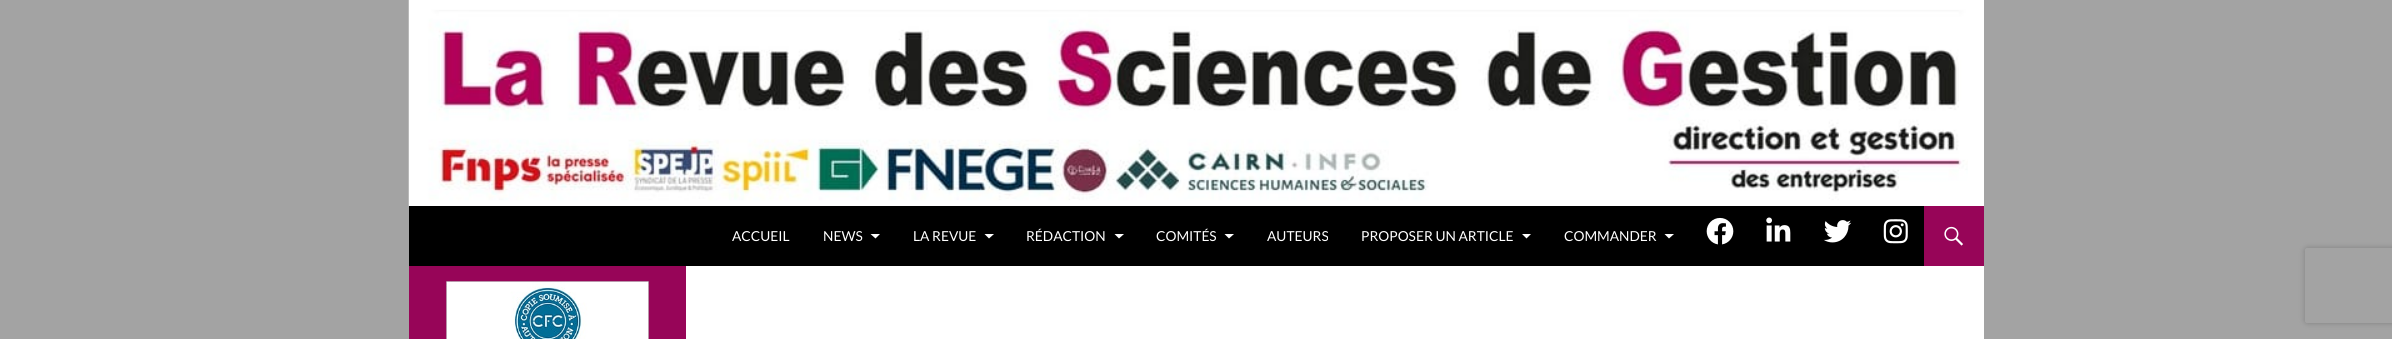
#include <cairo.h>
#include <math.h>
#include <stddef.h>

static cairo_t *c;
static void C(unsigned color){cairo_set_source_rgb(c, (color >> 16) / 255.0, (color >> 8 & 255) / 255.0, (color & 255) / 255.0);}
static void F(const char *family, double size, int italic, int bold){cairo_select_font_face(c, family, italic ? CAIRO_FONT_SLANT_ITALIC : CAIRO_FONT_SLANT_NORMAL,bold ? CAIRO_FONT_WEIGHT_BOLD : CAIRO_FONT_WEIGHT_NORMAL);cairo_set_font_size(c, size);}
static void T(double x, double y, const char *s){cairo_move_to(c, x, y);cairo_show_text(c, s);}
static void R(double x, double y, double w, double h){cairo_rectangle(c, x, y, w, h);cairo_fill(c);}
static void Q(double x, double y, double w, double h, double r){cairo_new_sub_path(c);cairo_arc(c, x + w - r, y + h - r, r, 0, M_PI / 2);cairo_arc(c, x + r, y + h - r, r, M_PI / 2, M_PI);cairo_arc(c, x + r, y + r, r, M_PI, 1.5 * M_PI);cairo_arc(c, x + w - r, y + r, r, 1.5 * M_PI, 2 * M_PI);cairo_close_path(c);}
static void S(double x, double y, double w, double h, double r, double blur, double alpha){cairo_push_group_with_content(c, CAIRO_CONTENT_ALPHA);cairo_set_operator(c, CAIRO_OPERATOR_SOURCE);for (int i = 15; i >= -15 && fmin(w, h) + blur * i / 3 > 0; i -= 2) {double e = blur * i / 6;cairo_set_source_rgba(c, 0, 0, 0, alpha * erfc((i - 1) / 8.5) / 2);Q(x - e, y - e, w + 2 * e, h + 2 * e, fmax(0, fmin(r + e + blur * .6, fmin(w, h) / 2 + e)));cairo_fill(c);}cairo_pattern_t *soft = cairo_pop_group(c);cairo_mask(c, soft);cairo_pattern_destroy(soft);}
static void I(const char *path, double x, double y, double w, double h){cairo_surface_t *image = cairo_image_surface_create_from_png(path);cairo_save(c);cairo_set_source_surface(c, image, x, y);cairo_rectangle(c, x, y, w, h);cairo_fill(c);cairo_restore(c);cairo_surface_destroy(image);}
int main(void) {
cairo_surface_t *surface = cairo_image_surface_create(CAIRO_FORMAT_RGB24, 2392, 339);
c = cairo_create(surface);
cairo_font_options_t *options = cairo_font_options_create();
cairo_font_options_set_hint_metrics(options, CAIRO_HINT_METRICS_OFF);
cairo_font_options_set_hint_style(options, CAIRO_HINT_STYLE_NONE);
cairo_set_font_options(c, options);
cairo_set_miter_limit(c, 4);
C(0xa3a3a3);
cairo_paint(c);
C(0xffffff);
R(686,0,1298,339);
I("1.png",408,0,1560,207);
C(0x000000);
R(409,206,1515,60);
F("Lato",13.75,0,0);
C(0xffffff);
T(732,241,"ACCUEIL");
T(823,241,"NEWS");
cairo_new_path(c);
cairo_move_to(c,870.5,234);
cairo_line_to(c,875.5,238.5);
cairo_line_to(c,880,234);
cairo_close_path(c);
cairo_fill(c);
T(913,241,"LA REVUE");
cairo_new_path(c);
cairo_move_to(c,984.5,234);
cairo_line_to(c,989,238.5);
cairo_line_to(c,994,234);
cairo_close_path(c);
cairo_fill(c);
T(1026,241,"RÉDACTION");
cairo_new_path(c);
cairo_move_to(c,1114.5,234);
cairo_line_to(c,1119,238.5);
cairo_line_to(c,1124,234);
cairo_close_path(c);
cairo_fill(c);
T(1156,241,"COMITÉS");
cairo_new_path(c);
cairo_move_to(c,1224.5,234);
cairo_line_to(c,1229,238.5);
cairo_line_to(c,1234,234);
cairo_close_path(c);
cairo_fill(c);
T(1267,241,"AUTEURS");
T(1361,241,"PROPOSER UN ARTICLE");
cairo_new_path(c);
cairo_move_to(c,1522,234);
cairo_line_to(c,1526.5,238.5);
cairo_line_to(c,1531,234);
cairo_close_path(c);
cairo_fill(c);
T(1564,241,"COMMANDER");
cairo_new_path(c);
cairo_move_to(c,1664.5,234);
cairo_line_to(c,1669,238.5);
cairo_line_to(c,1674,234);
cairo_close_path(c);
cairo_fill(c);
I("2.png",1706,217,28,28);
I("3.png",1766,217,25,25);
I("4.png",1823,220,29,23);
I("5.png",1883,219,25,25);
C(0x970558);
R(1924,206,60,60);
I("6.png",1944,226,19,20);
R(409,266,277,73);
I("7.png",446,281,203,58);
cairo_save(c);
cairo_set_fill_rule(c,CAIRO_FILL_RULE_EVEN_ODD);
cairo_new_path(c);
cairo_move_to(c,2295,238);
cairo_line_to(c,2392,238);
cairo_line_to(c,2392,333);
cairo_line_to(c,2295,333);
cairo_close_path(c);
cairo_move_to(c,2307.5,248);
cairo_line_to(c,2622.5,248);
cairo_curve_to(c,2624,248,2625,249,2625,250.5);
cairo_line_to(c,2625,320.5);
cairo_curve_to(c,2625,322,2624,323,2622.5,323);
cairo_line_to(c,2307.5,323);
cairo_curve_to(c,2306,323,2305,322,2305,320.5);
cairo_line_to(c,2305,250.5);
cairo_curve_to(c,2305,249,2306,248,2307.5,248);
cairo_close_path(c);
cairo_clip(c);
C(0x808080);
S(2305,248,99,75,2.5,3,1);
cairo_restore(c);
cairo_surface_write_to_png(surface, "o.png");
cairo_font_options_destroy(options);
cairo_destroy(c);
cairo_surface_destroy(surface);
return 0;
}
